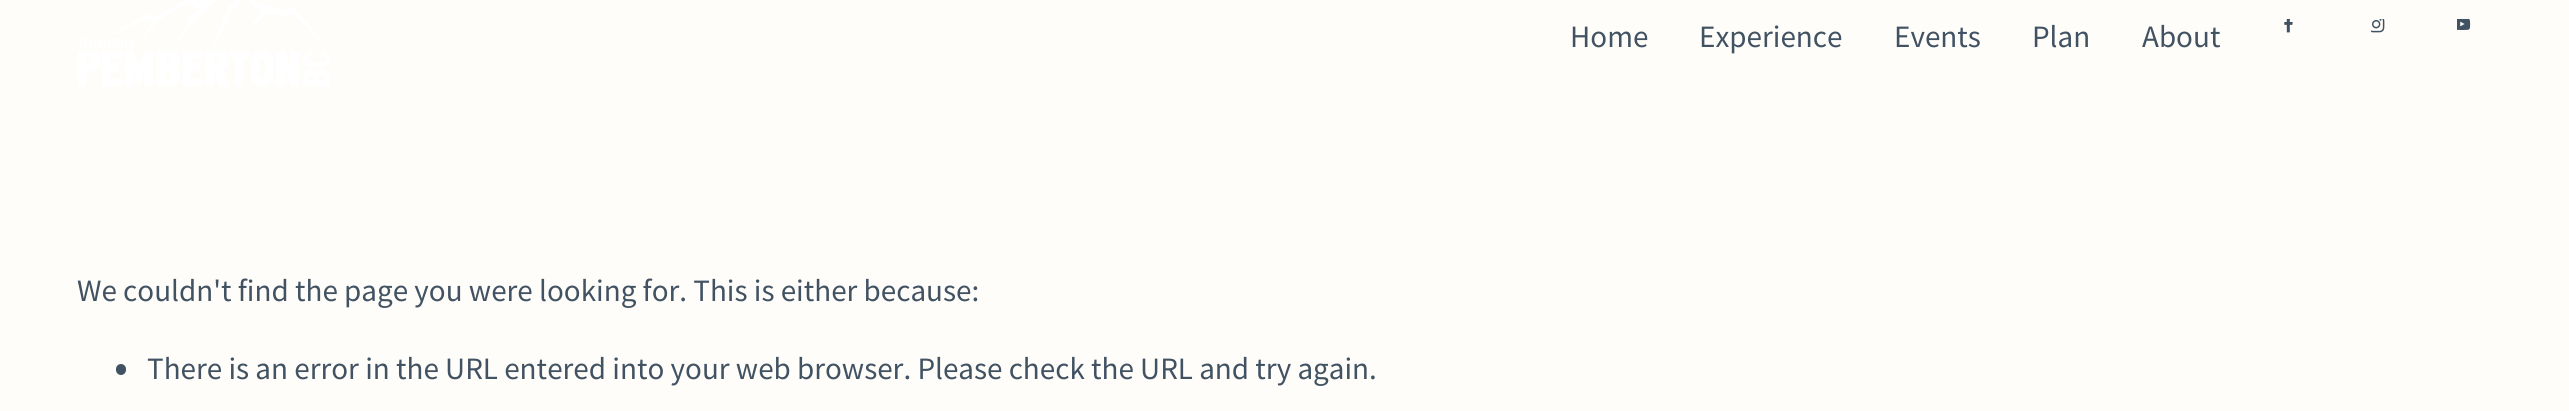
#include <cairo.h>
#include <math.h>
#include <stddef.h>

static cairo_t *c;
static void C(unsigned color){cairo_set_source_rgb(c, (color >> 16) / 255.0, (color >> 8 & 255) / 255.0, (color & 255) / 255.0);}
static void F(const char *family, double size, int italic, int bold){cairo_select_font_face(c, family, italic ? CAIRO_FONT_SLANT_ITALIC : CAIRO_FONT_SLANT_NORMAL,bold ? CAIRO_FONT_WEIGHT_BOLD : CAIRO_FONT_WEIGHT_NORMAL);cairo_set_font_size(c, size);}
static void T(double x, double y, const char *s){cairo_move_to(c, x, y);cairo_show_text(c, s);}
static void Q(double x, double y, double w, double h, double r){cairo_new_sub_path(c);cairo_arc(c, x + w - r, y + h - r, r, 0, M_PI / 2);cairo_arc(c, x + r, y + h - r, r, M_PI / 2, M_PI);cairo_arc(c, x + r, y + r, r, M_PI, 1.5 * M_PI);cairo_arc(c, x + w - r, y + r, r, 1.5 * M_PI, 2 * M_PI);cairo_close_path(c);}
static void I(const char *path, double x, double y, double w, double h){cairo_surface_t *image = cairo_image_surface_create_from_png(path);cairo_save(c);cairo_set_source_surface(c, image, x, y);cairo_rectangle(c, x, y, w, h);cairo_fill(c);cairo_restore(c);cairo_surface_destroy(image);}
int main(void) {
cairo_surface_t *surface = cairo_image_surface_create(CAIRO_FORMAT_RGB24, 2569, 411);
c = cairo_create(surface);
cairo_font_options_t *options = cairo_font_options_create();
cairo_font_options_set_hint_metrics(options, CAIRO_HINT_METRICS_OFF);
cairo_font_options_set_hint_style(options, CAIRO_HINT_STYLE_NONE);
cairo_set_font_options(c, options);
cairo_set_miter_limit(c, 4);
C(0xfffdfa);
cairo_paint(c);
I("1.png",77,0,253,86);
F("Source Sans Pro",31.1,0,0);
C(0x415262);
T(1570,47,"Home");
T(1699,47,"Experience");
T(1894,47,"Events");
T(2032,47,"Plan");
T(2142,47,"About");
I("2.png",2284,19,9,14);
I("3.png",2371,19,14,14);
I("4.png",2457,19,14,11);
T(77,301,"We couldn't find the page you were looking for. This is either because:");
Q(116,364,10,11,5);
cairo_fill(c);
T(147,379,"There is an error in the URL entered into your web browser. Please check the URL and try again.");
cairo_surface_write_to_png(surface, "o.png");
cairo_font_options_destroy(options);
cairo_destroy(c);
cairo_surface_destroy(surface);
return 0;
}
